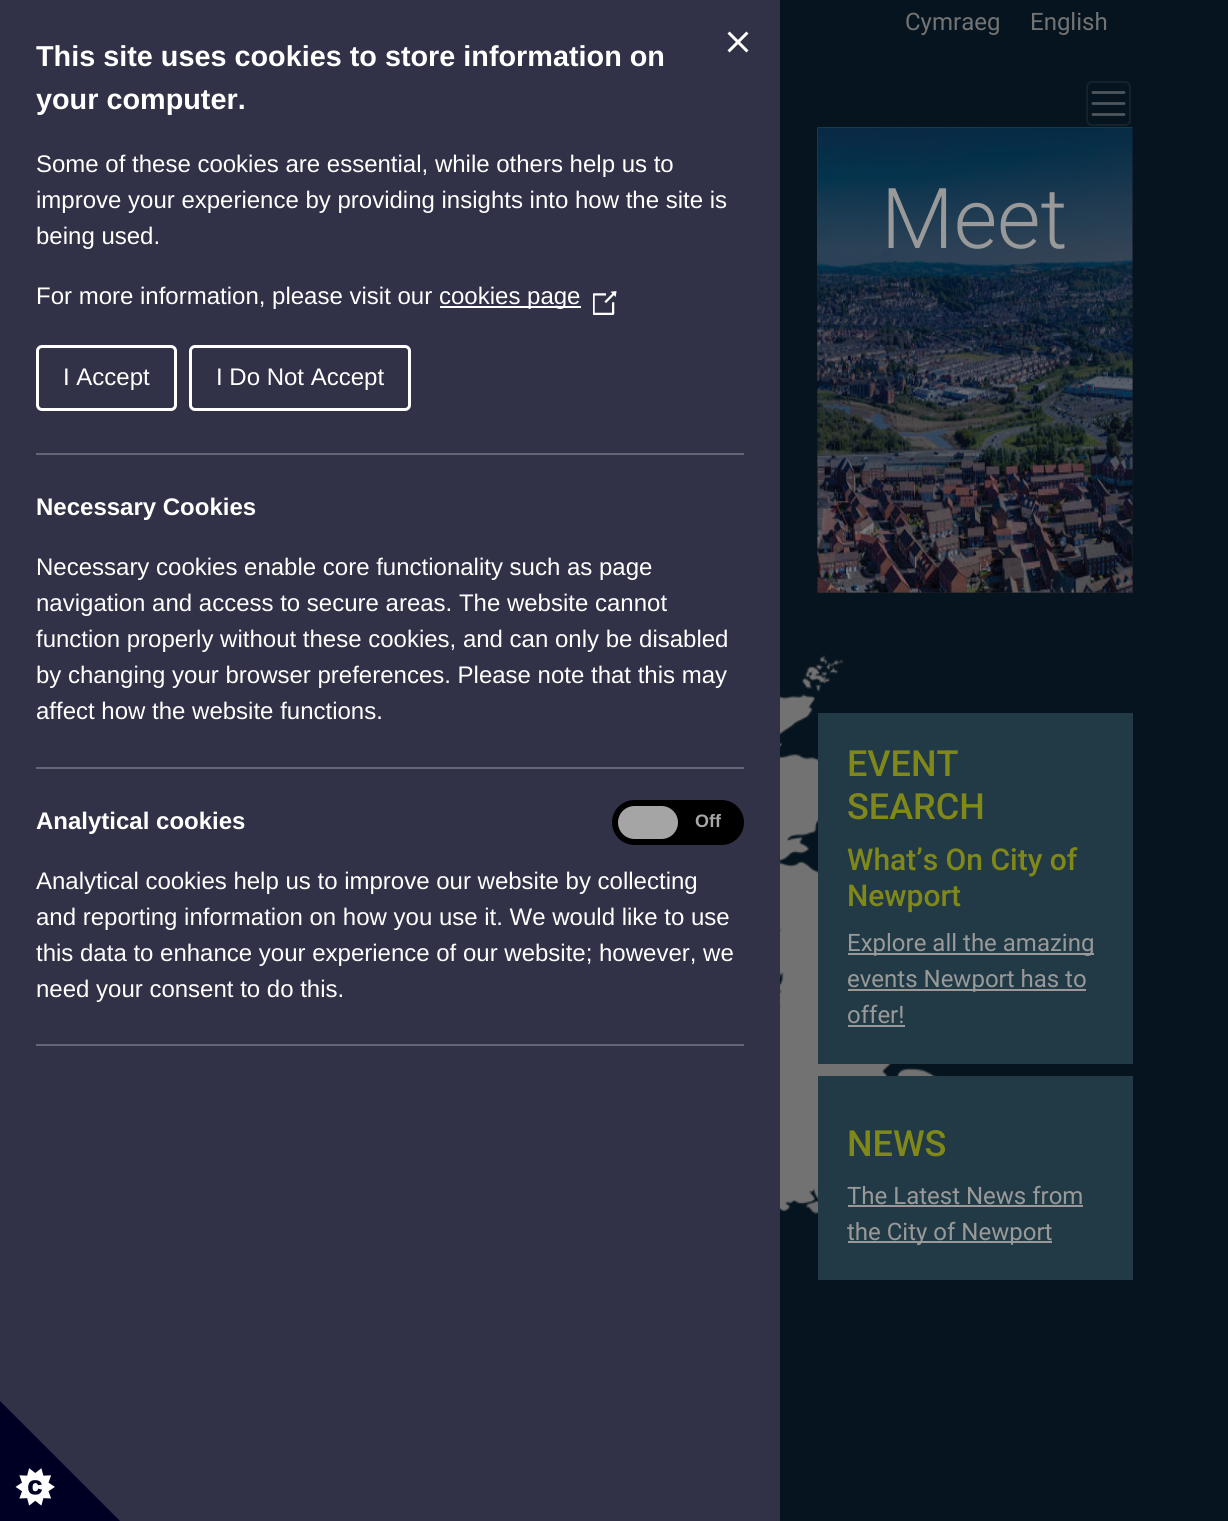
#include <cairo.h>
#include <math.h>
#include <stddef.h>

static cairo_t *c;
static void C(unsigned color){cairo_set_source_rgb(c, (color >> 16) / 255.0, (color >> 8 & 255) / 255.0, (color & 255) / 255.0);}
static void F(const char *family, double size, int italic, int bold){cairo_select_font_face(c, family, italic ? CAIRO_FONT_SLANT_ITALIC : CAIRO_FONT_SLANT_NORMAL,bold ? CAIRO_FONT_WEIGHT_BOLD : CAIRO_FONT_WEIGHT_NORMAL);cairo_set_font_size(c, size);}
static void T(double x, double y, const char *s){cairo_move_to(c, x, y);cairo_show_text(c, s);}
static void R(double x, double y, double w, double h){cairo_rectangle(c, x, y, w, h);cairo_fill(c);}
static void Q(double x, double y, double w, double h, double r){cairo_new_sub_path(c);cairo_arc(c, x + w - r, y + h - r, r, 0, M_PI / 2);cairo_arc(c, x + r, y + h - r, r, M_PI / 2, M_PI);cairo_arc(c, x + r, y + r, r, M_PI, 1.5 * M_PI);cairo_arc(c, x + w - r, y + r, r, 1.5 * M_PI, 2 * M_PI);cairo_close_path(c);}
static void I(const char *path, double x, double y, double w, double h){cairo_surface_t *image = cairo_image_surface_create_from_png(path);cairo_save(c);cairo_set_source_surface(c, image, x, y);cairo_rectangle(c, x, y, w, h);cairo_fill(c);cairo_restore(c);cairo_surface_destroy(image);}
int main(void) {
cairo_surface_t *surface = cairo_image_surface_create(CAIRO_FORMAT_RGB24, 1228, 1521);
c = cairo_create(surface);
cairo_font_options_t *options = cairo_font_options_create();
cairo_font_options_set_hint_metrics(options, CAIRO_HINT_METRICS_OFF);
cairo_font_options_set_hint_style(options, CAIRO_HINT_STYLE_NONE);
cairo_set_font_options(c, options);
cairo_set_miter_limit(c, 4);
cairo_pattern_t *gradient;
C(0x05141e);
cairo_paint(c);
C(0x313147);
R(0,0,780,1521);
I("1.png",727,31,22,22);
F("Liberation Sans",28.8,0,1);
C(0xffffff);
T(36,66,"This site uses cookies to store information on");
T(36,109,"your computer.");
F("Liberation Sans",24,0,0);
T(36,172,"Some of these cookies are essential, while others help us to");
T(36,208,"improve your experience by providing insights into how the site is");
T(36,244,"being used.");
T(36,304,"For more information, please visit our");
R(440,306,141,2);
T(439,304,"cookies page");
I("2.png",593,291,24,24);
Q(37.5,346.5,138,63,4.5);
cairo_set_line_width(c,3);
cairo_stroke(c);
T(63,385,"I Accept");
Q(190.5,346.5,219,63,4.5);
cairo_stroke(c);
T(216,385,"I Do Not Accept");
C(0x656575);
R(36,453,708,2);
F("Liberation Sans",24,0,1);
C(0xffffff);
T(36,515,"Necessary Cookies");
F("Liberation Sans",24,0,0);
T(36,575,"Necessary cookies enable core functionality such as page");
T(36,611,"navigation and access to secure areas. The website cannot");
T(36,647,"function properly without these cookies, and can only be disabled");
T(36,683,"by changing your browser preferences. Please note that this may");
T(36,719,"affect how the website functions.");
C(0x656575);
R(36,767,708,2);
F("Liberation Sans",24,0,1);
C(0xffffff);
T(36,829,"Analytical cookies");
C(0x000000);
Q(615,803,126,39,19.5);
cairo_fill_preserve(c);
cairo_set_line_width(c,6);
cairo_stroke(c);
C(0xa5a5a5);
Q(618,806,60,33,16.5);
cairo_fill(c);
F("Liberation Sans",18,0,1);
C(0xa6a6a6);
T(695,827,"Off");
F("Liberation Sans",24,0,0);
C(0xffffff);
T(36,889,"Analytical cookies help us to improve our website by collecting");
T(36,925,"and reporting information on how you use it. We would like to use");
T(36,961,"this data to enhance your experience of our website; however, we");
T(36,997,"need your consent to do this.");
C(0x656575);
R(36,1044,708,2);
I("3.png",0,1401,120,120);
F("Roboto",24,0,0);
C(0x737373);
T(905,30,"Cymraeg");
T(1030,30,"English");
cairo_new_path(c);
cairo_move_to(c,1093,92.5);
cairo_line_to(c,1124,92.5);
cairo_move_to(c,1093,103.5);
cairo_line_to(c,1124,103.5);
cairo_move_to(c,1093,114.5);
cairo_line_to(c,1124,114.5);
C(0x4f575c);
cairo_set_line_width(c,2.8);
cairo_set_line_cap(c,CAIRO_LINE_CAP_ROUND);
cairo_stroke(c);
Q(1087,82,43,43,5);
C(0x14222b);
cairo_set_line_width(c,2);
cairo_set_line_cap(c,CAIRO_LINE_CAP_BUTT);
cairo_stroke(c);
C(0x1f2326);
R(818,128,315,465);
I("4.png",817,127,316,466);
gradient = cairo_pattern_create_linear(975,128,975,593);
cairo_pattern_add_color_stop_rgba(gradient,0,0.004,0,0.086,.6);
cairo_pattern_add_color_stop_rgba(gradient,1,0.004,0,0.086,0);
cairo_set_source(c,gradient);
cairo_pattern_destroy(gradient);
R(818,128,315,448);
F("Roboto Light",84,0,0);
C(0x999999);
T(881,248,"Meet");
I("5.png",780,655,157,559);
C(0x223a45);
R(818,713,315,351);
F("Roboto Medium",36,0,0);
C(0x7f8819);
T(847,776,"EVENT");
T(847,819,"SEARCH");
F("Roboto Medium",30,0,0);
T(847,870,"What’s On City of");
T(847,906,"Newport");
C(0x999999);
R(848,953,246,2);
F("Roboto",24,0,0);
T(847,951,"Explore all the amazing");
R(848,989,238,2);
T(847,987,"events Newport has to");
T(847,1023,"offer!");
R(848,1025,57,2);
C(0x223a45);
R(818,1076,315,204);
F("Roboto Medium",36,0,0);
C(0x7f8819);
T(847,1156,"NEWS");
F("Roboto",24,0,0);
C(0x999999);
T(847,1204,"The Latest News from");
R(848,1205,235,2);
R(848,1241,204,2);
T(847,1240,"the City of Newport");
cairo_surface_write_to_png(surface, "o.png");
cairo_font_options_destroy(options);
cairo_destroy(c);
cairo_surface_destroy(surface);
return 0;
}
